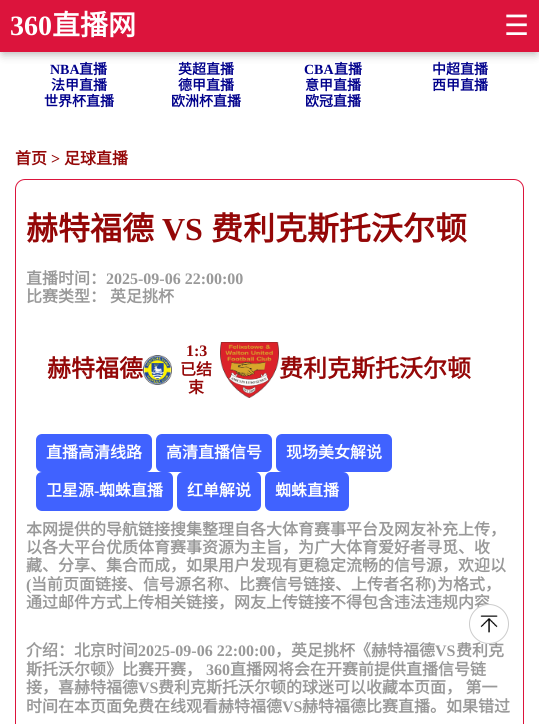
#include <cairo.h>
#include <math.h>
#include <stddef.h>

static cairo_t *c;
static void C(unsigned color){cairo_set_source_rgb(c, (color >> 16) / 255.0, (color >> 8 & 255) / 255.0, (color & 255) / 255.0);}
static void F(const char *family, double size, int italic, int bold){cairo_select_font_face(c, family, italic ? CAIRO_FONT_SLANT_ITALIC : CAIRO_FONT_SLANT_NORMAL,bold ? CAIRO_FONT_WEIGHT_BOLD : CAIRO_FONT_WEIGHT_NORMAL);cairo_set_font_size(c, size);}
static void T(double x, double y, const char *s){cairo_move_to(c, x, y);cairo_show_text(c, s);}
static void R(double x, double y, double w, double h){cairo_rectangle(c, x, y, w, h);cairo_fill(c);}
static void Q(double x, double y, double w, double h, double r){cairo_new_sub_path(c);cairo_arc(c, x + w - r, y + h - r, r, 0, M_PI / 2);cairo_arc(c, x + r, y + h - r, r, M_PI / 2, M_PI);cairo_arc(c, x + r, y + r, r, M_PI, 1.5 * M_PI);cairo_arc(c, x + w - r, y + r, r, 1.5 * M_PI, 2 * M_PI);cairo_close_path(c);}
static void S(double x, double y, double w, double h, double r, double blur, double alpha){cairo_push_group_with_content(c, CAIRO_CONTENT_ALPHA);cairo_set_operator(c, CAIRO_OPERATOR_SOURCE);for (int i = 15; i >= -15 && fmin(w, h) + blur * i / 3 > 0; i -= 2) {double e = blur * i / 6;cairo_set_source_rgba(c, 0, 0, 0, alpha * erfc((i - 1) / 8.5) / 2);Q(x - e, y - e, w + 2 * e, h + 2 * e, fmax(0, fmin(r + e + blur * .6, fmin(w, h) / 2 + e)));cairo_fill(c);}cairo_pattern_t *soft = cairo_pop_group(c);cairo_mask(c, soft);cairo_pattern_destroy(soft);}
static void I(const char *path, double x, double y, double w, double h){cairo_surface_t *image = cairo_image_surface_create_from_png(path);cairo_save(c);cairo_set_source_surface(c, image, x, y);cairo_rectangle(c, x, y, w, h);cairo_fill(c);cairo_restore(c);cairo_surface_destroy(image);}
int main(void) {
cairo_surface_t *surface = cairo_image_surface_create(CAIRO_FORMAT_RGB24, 539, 724);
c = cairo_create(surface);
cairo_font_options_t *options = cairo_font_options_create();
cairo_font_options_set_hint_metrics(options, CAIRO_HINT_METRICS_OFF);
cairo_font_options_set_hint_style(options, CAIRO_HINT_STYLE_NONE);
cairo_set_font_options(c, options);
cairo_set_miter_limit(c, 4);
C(0xffffff);
cairo_paint(c);
C(0x000000);
S(3,7,533,46,0,5,.35);
C(0xdc143c);
R(0,0,539,52);
F("Liberation Serif",28,0,1);
C(0xffffff);
T(10,35,"360");
F("Noto Sans CJK SC",28,0,1);
T(52,35,"直播网");
F("DejaVu Sans",28,0,0);
T(504,35,"☰");
F("Liberation Serif",14,0,1);
C(0x00008b);
T(50,74,"NBA");
F("Noto Sans CJK SC",14,0,1);
T(79,74,"直播");
T(178,74,"英超直播");
F("Liberation Serif",14,0,1);
T(304,74,"CBA");
F("Noto Sans CJK SC",14,0,1);
T(334,74,"直播");
T(432,74,"中超直播");
T(51,90,"法甲直播");
T(178,90,"德甲直播");
T(305,90,"意甲直播");
T(432,90,"西甲直播");
T(44,106,"世界杯直播");
T(171,106,"欧洲杯直播");
T(305,106,"欧冠直播");
F("Noto Sans CJK SC",16,0,1);
C(0x940707);
T(15,164,"首页");
F("Liberation Serif",16,0,1);
T(51,164,">");
F("Noto Sans CJK SC",16,0,1);
T(64,164,"足球直播");
Q(15.5,179.5,508,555,9.5);
C(0xdc143c);
cairo_set_line_width(c,1);
cairo_stroke(c);
F("Noto Sans CJK SC",32,0,1);
C(0x940707);
T(26,240,"赫特福德");
F("Liberation Serif",32,0,1);
T(162,240,"VS");
F("Noto Sans CJK SC",32,0,1);
T(211,240,"费利克斯托沃尔顿");
F("Noto Sans CJK SC",16,0,1);
C(0x999999);
T(26,284,"直播时间：");
F("Liberation Serif",16,0,1);
T(106,284,"2025-09-06 22:00:00");
F("Noto Sans CJK SC",16,0,1);
T(26,302,"比赛类型：");
T(110,302,"英足挑杯");
F("Noto Sans CJK SC",24,0,1);
C(0x940707);
T(47,377,"赫特福德");
I("1.png",143,355,29,30);
F("Liberation Serif",16,0,1);
T(186,356,"1:3");
F("Noto Sans CJK SC",16,0,1);
T(180,375,"已结");
T(188,393,"束");
I("2.png",220,342,59,56);
F("Noto Sans CJK SC",24,0,1);
T(279,377,"费利克斯托沃尔顿");
C(0x4062ff);
Q(36,434,116,38,6);
cairo_fill(c);
F("Noto Sans CJK SC",16,0,1);
C(0xffffff);
T(46,458,"直播高清线路");
C(0x4062ff);
Q(156,434,116,38,6);
cairo_fill(c);
C(0xffffff);
T(166,458,"高清直播信号");
C(0x4062ff);
Q(276,434,116,38,6);
cairo_fill(c);
C(0xffffff);
T(286,458,"现场美女解说");
C(0x4062ff);
Q(36,472,137,39,6);
cairo_fill(c);
C(0xffffff);
T(46,496,"卫星源");
F("Liberation Serif",16,0,1);
T(94,496,"-");
F("Noto Sans CJK SC",16,0,1);
T(99,496,"蜘蛛直播");
C(0x4062ff);
Q(177,472,84,39,6);
cairo_fill(c);
C(0xffffff);
T(187,496,"红单解说");
C(0x4062ff);
Q(265,472,84,39,6);
cairo_fill(c);
C(0xffffff);
T(275,496,"蜘蛛直播");
C(0x999999);
T(26,535,"本网提供的导航链接搜集整理自各大体育赛事平台及网友补充上传，");
T(26,553,"以各大平台优质体育赛事资源为主旨，为广大体育爱好者寻觅、收");
T(26,571,"藏、分享、集合而成，如果用户发现有更稳定流畅的信号源，欢迎以");
F("Liberation Serif",16,0,1);
T(26,590,"(");
F("Noto Sans CJK SC",16,0,1);
T(31,590,"当前页面链接、信号源名称、比赛信号链接、上传者名称");
F("Liberation Serif",16,0,1);
T(431,590,")");
F("Noto Sans CJK SC",16,0,1);
T(437,590,"为格式，");
T(26,608,"通过邮件方式上传相关链接，网友上传链接不得包含违法违规内容");
T(26,656,"介绍：北京时间");
F("Liberation Serif",16,0,1);
T(138,656,"2025-09-06 22:00:00");
F("Noto Sans CJK SC",16,0,1);
T(275,656,"，英足挑杯《赫特福德");
F("Liberation Serif",16,0,1);
T(435,656,"VS");
F("Noto Sans CJK SC",16,0,1);
T(456,656,"费利克");
T(26,675,"斯托沃尔顿》比赛开赛，");
F("Liberation Serif",16,0,1);
T(206,675,"360");
F("Noto Sans CJK SC",16,0,1);
T(230,675,"直播网将会在开赛前提供直播信号链");
T(26,693,"接，喜赫特福德");
F("Liberation Serif",16,0,1);
T(138,693,"VS");
F("Noto Sans CJK SC",16,0,1);
T(158,693,"费利克斯托沃尔顿的球迷可以收藏本页面， 第一");
T(26,712,"时间在本页面免费在线观看赫特福德");
F("Liberation Serif",16,0,1);
T(282,712,"VS");
F("Noto Sans CJK SC",16,0,1);
T(302,712,"赫特福德比赛直播。如果错过");
C(0xffffff);
cairo_new_path(c);
cairo_arc(c,489,624,20,0,2 * M_PI);
cairo_fill(c);
I("3.png",480,615,18,18);
cairo_arc(c,489,624,19.5,0,2 * M_PI);
C(0xcccccc);
cairo_stroke(c);
cairo_surface_write_to_png(surface, "o.png");
cairo_font_options_destroy(options);
cairo_destroy(c);
cairo_surface_destroy(surface);
return 0;
}
